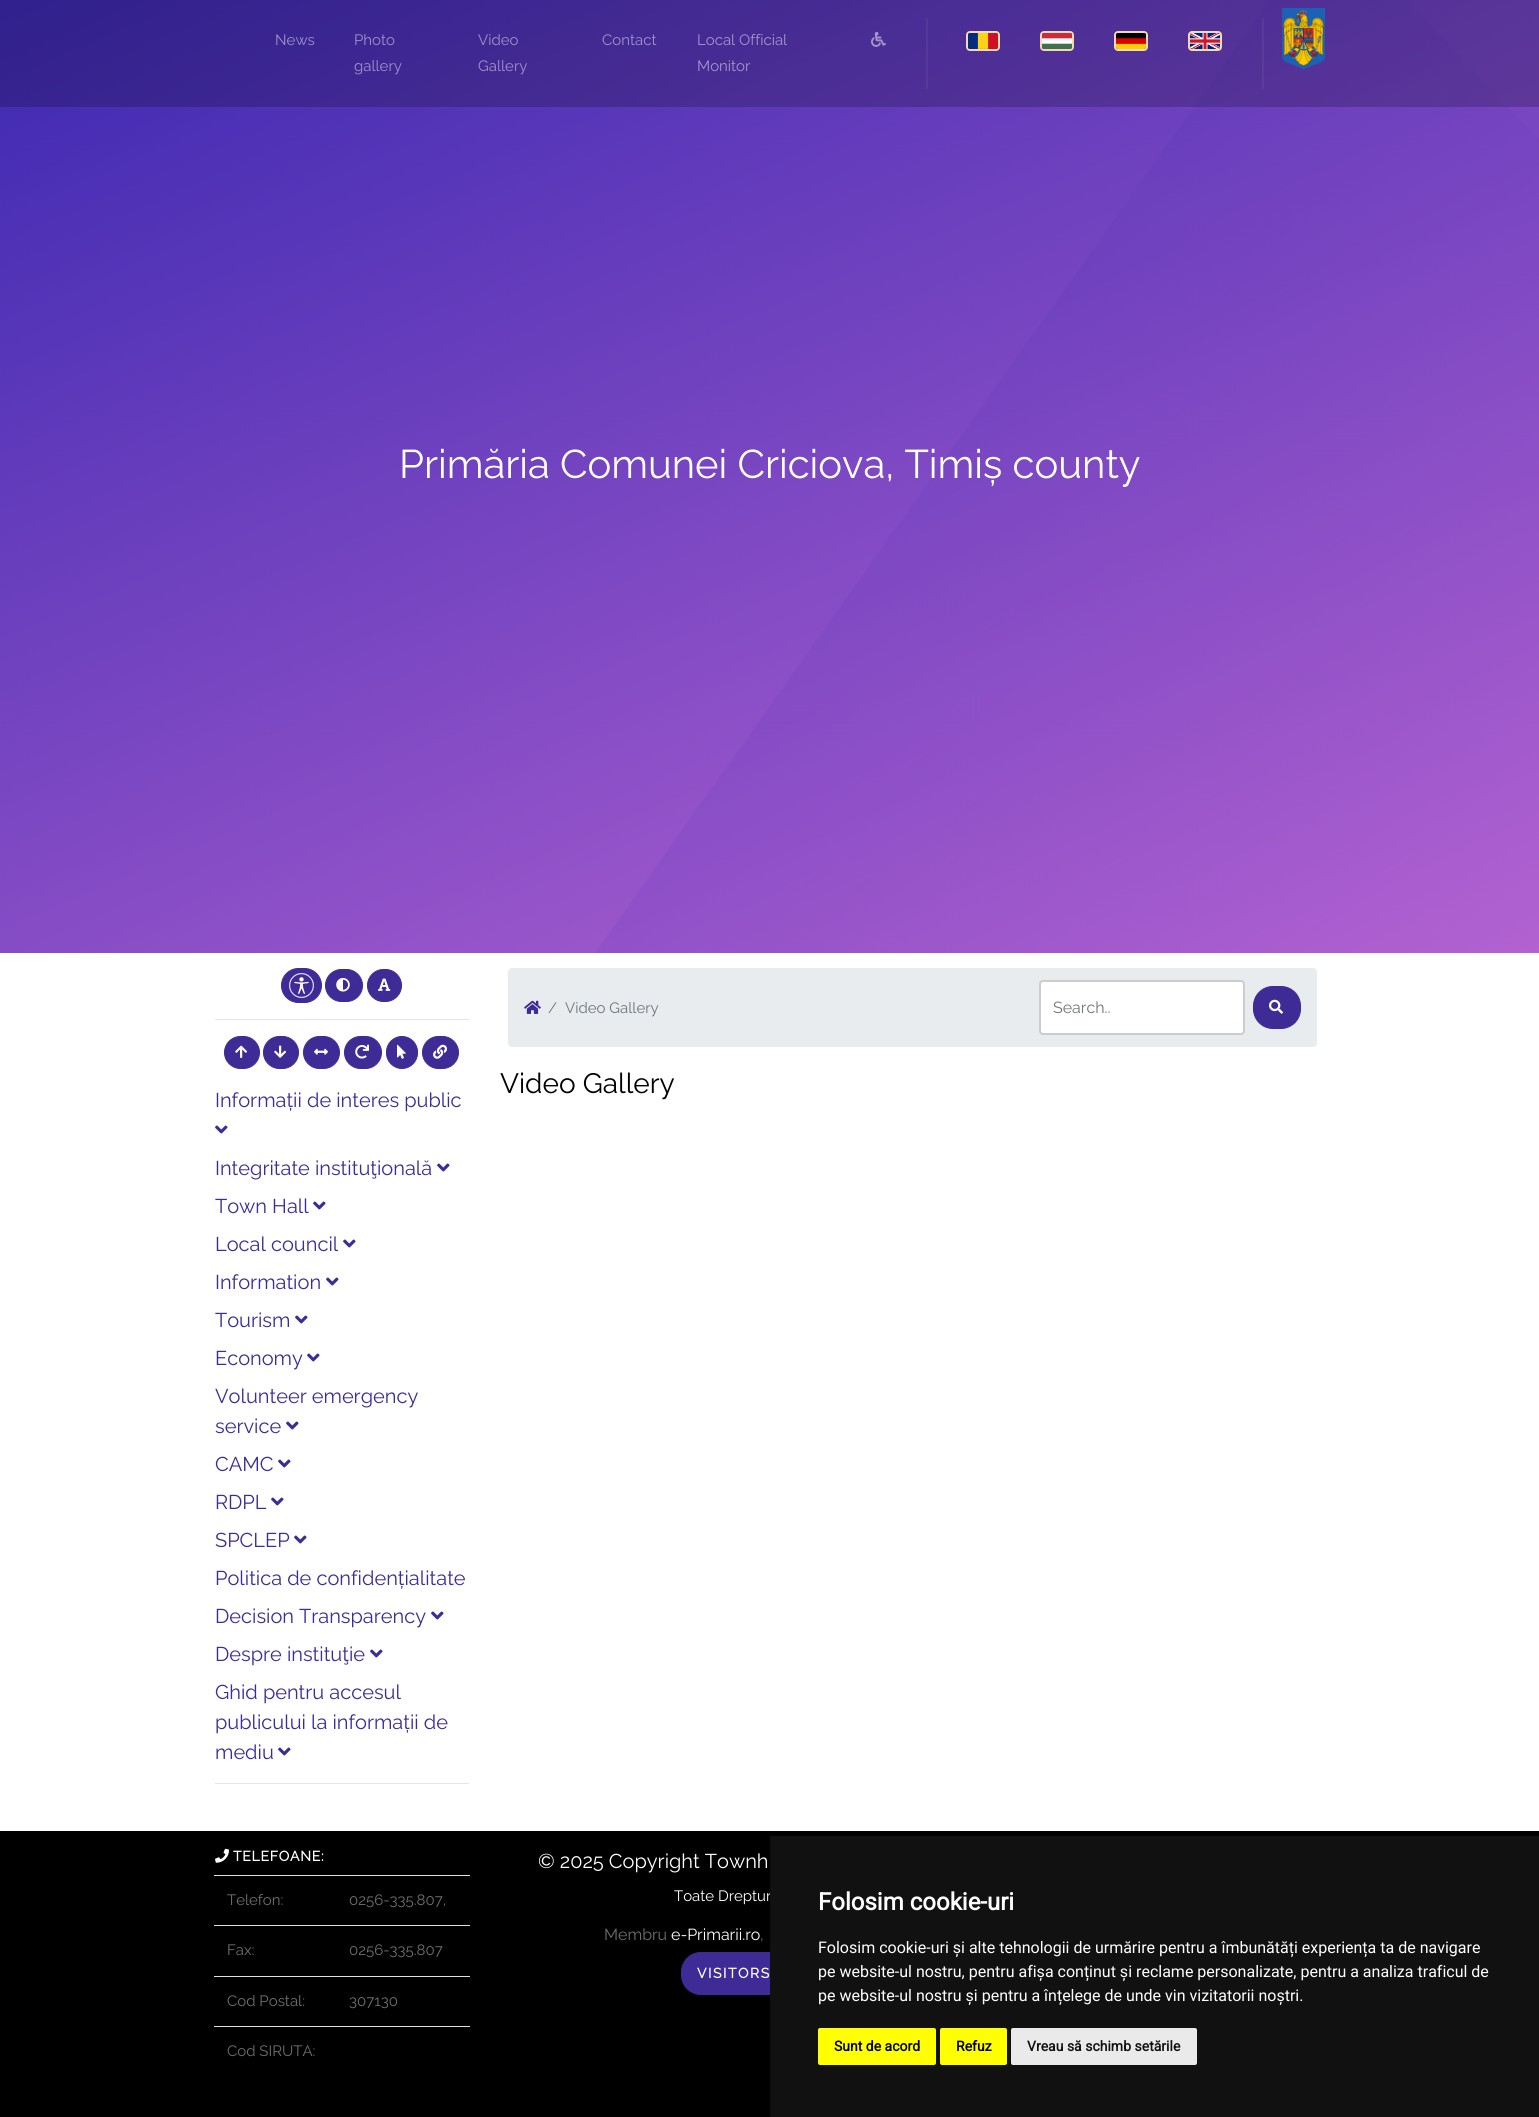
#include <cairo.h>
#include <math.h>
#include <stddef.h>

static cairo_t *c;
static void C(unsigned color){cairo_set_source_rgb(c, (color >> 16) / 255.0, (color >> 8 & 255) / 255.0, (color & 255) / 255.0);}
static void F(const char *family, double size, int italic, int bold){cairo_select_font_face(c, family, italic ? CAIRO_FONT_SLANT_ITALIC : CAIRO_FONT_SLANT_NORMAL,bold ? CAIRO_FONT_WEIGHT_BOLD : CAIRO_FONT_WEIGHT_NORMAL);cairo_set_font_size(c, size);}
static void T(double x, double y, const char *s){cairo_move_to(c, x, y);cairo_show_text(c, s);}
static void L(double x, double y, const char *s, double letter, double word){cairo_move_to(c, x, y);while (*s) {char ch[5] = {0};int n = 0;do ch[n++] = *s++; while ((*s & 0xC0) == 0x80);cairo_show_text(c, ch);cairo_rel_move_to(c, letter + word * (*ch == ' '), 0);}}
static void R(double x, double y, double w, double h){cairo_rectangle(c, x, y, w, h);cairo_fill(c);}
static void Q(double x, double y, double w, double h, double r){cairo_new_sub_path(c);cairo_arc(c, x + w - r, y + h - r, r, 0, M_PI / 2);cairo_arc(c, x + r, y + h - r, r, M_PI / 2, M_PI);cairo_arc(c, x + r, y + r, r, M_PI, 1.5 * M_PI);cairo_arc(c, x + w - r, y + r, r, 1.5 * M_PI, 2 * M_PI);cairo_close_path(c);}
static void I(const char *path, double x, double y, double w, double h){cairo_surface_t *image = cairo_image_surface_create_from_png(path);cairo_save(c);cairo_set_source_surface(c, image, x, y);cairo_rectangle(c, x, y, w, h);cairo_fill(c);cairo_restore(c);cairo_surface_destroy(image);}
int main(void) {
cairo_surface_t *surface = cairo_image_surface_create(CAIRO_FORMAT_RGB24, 1539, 2117);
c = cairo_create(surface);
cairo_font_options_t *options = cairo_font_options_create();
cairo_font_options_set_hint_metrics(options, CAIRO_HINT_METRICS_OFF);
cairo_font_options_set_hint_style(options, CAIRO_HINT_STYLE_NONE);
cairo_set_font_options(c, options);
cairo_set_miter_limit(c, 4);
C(0xffffff);
cairo_paint(c);
I("7.png",0,0,1539,953);
cairo_set_source_rgba(c,0,0,0,0.2);
R(0,0,1539,107);
F("Raleway Thin",15,0,0);
C(0x9d92c8);
T(275,45,"News");
T(354,45,"Photo");
T(354,71,"gallery");
T(478,45,"Video");
T(478,71,"Gallery");
T(602,45,"Contact");
C(0xa395c9);
T(697,45,"Local Official");
T(697,71,"Monitor");
I("1.png",871,31,15,16);
cairo_set_source_rgba(c,1,1,1,0.05);
R(926,18,2,71);
Q(967,32,32,18,3);
C(0xf0dab0);
cairo_stroke(c);
I("2.png",968,33,30,16);
Q(1041,32,32,18,3);
cairo_stroke(c);
I("3.png",1042,33,30,16);
Q(1115,32,32,18,3);
cairo_stroke(c);
I("4.png",1116,33,30,16);
Q(1189,32,32,18,3);
cairo_stroke(c);
I("5.png",1190,33,30,16);
cairo_set_source_rgba(c,1,1,1,0.05);
R(1262,18,2,71);
I("6.png",1282,8,43,61);
F("Raleway Thin",40,0,0);
C(0xffffff);
T(399,478,"Primăria Comunei Criciova, Timiș county");
C(0xe9ecef);
Q(508,968,809,79,4);
cairo_fill(c);
I("8.png",524,1000,17,14);
F("Raleway Thin",15,0,0);
C(0x6c757d);
T(548,1013,"/");
T(565,1013,"Video Gallery");
C(0xffffff);
Q(1040,981,204,53,3);
cairo_fill_preserve(c);
C(0xcccccc);
cairo_stroke(c);
F("Raleway Thin",16,0,0);
C(0x6c757d);
T(1053,1013,"Search..");
C(0x3f2b96);
Q(1253.5,986.5,47,42,19.5);
cairo_fill_preserve(c);
cairo_set_line_width(c,1);
cairo_stroke(c);
I("9.png",1269,999,14,15);
F("Raleway Thin",28,0,0);
C(0x000000);
T(500,1093,"Video Gallery");
C(0x3f2b96);
Q(281.5,968.5,40,34,17);
cairo_fill_preserve(c);
cairo_stroke(c);
I("10.png",289,973,25,25);
Q(325.5,969.5,37,32,16);
cairo_fill_preserve(c);
cairo_stroke(c);
I("11.png",336,978,14,14);
Q(367.5,969.5,34,32,16);
cairo_fill_preserve(c);
cairo_stroke(c);
I("12.png",378,978,13,13);
C(0xe6e6e6);
R(215,1019,254,1);
C(0x3f2b96);
Q(224.5,1036.5,35,32,16);
cairo_fill_preserve(c);
cairo_stroke(c);
I("13.png",235,1045,12,13);
Q(263.5,1036.5,35,32,16);
cairo_fill_preserve(c);
cairo_stroke(c);
I("14.png",274,1045,12,13);
Q(303.5,1036.5,36,32,16);
cairo_fill_preserve(c);
cairo_stroke(c);
I("15.png",314,1048,14,7);
Q(344.5,1036.5,37,32,16);
cairo_fill_preserve(c);
cairo_stroke(c);
I("16.png",355,1044,14,15);
Q(386.5,1036.5,31,32,15.5);
cairo_fill_preserve(c);
cairo_stroke(c);
I("17.png",397,1044,9,15);
Q(422.5,1036.5,36,32,16);
cairo_fill_preserve(c);
cairo_stroke(c);
I("18.png",433,1044,14,15);
F("Raleway Thin",20,0,0);
T(215,1107,"Informații de interes public");
I("19.png",215,1125,13,9);
T(215,1175,"Integritate instituţională");
I("19.png",437,1163,13,9);
T(215,1213,"Town Hall");
I("19.png",313,1201,13,9);
T(215,1251,"Local council");
I("19.png",343,1239,13,9);
T(215,1289,"Information");
I("19.png",326,1277,13,9);
T(215,1327,"Tourism");
I("19.png",295,1315,13,9);
T(215,1365,"Economy");
I("19.png",307,1353,13,9);
T(215,1403,"Volunteer emergency");
T(215,1433,"service");
I("19.png",286,1421,13,9);
T(215,1471,"CAMC");
I("19.png",278,1459,13,9);
T(215,1509,"RDPL");
I("19.png",271,1497,13,9);
T(215,1547,"SPCLEP");
I("19.png",294,1535,13,9);
T(215,1585,"Politica de confidențialitate");
T(215,1623,"Decision Transparency");
I("19.png",431,1611,13,9);
T(215,1661,"Despre instituţie");
I("19.png",370,1649,13,9);
T(215,1699,"Ghid pentru accesul");
T(215,1729,"publicului la informații de");
T(215,1759,"mediu");
I("19.png",278,1747,13,9);
C(0xe6e6e6);
R(215,1783,254,1);
C(0x000000);
R(0,1831,1539,286);
I("20.png",215,1848,14,15);
F("Raleway",14,0,1);
C(0xffffff);
L(233,1861,"TELEFOANE:",.75,0);
F("Raleway Thin",15,0,0);
C(0x6f6f6f);
T(227,1905,"Telefon:");
C(0xdee2e6);
R(214,1875,256,1);
C(0x6f6f6f);
T(349,1905,"0256-335.807,");
T(227,1955,"Fax:");
C(0xdee2e6);
R(214,1925,256,1);
C(0x6f6f6f);
T(349,1955,"0256-335.807");
T(227,2006,"Cod Postal:");
C(0xdee2e6);
R(214,1976,256,1);
C(0x6f6f6f);
T(349,2006,"307130");
C(0xdee2e6);
R(214,2026,256,1);
C(0x6f6f6f);
T(227,2056,"Cod SIRUTA:");
F("Raleway Thin",20,0,0);
C(0xffffff);
T(538,1868,"© 2025 Copyright Townh");
F("Raleway Thin",15,0,0);
T(674,1901,"Toate Dreptur");
F("Raleway Thin",16,0,0);
C(0x6f6f6f);
T(604,1940,"Membru");
C(0xffffff);
T(671,1940,"e-Primarii.ro");
C(0x6f6f6f);
T(760,1940,",");
C(0x3f2b96);
Q(681.5,1952.5,176,42,19.5);
cairo_fill_preserve(c);
cairo_stroke(c);
F("Raleway",14,0,1);
C(0xffffff);
L(697,1978,"VISITORS",1.5,0);
C(0x111111);
R(770,1836,769,281);
F("Roboto",24,0,1);
C(0xffffff);
T(818,1910,"Folosim cookie-uri");
F("Roboto",16,0,0);
T(818,1953,"Folosim cookie-uri și alte tehnologii de urmărire pentru a îmbunătăți experiența ta de navigare");
T(818,1977,"pe website-ul nostru, pentru afișa conținut și reclame personalizate, pentru a analiza traficul de");
T(818,2001,"pe website-ul nostru și pentru a înțelege de unde vin vizitatorii noștri.");
C(0xffff00);
Q(818,2028,118,37,2);
cairo_fill(c);
F("Roboto",14,0,1);
C(0x000000);
T(834,2051,"Sunt de acord");
C(0xffff00);
Q(940,2028,67,37,2);
cairo_fill(c);
C(0x000000);
T(956,2051,"Refuz");
C(0xeaeaea);
Q(1011,2028,186,37,2);
cairo_fill(c);
C(0x111111);
T(1027,2051,"Vreau să schimb setările");
cairo_surface_write_to_png(surface, "o.png");
cairo_font_options_destroy(options);
cairo_destroy(c);
cairo_surface_destroy(surface);
return 0;
}
